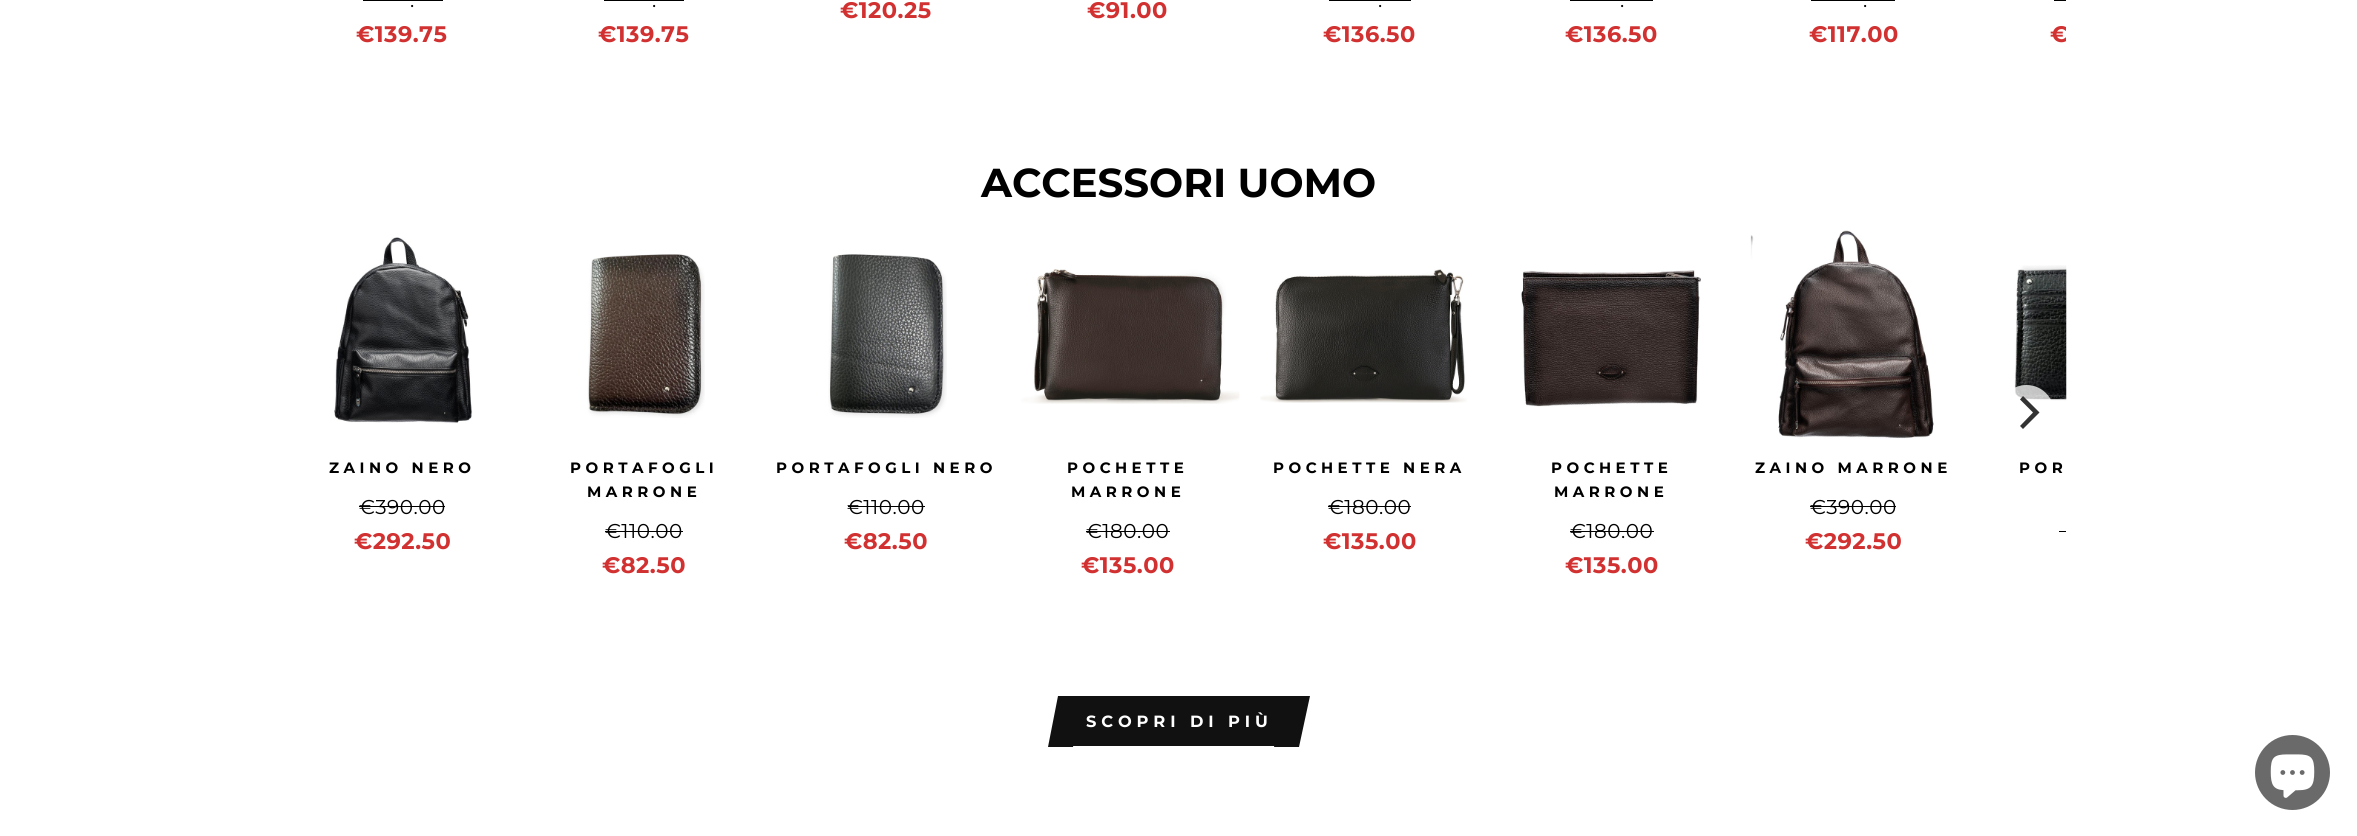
#include <cairo.h>
#include <math.h>
#include <stddef.h>

static cairo_t *c;
static void C(unsigned color){cairo_set_source_rgb(c, (color >> 16) / 255.0, (color >> 8 & 255) / 255.0, (color & 255) / 255.0);}
static void F(const char *family, double size, int italic, int bold){cairo_select_font_face(c, family, italic ? CAIRO_FONT_SLANT_ITALIC : CAIRO_FONT_SLANT_NORMAL,bold ? CAIRO_FONT_WEIGHT_BOLD : CAIRO_FONT_WEIGHT_NORMAL);cairo_set_font_size(c, size);}
static void T(double x, double y, const char *s){cairo_move_to(c, x, y);cairo_show_text(c, s);}
static void L(double x, double y, const char *s, double letter, double word){cairo_move_to(c, x, y);while (*s) {char ch[5] = {0};int n = 0;do ch[n++] = *s++; while ((*s & 0xC0) == 0x80);cairo_show_text(c, ch);cairo_rel_move_to(c, letter + word * (*ch == ' '), 0);}}
static void R(double x, double y, double w, double h){cairo_rectangle(c, x, y, w, h);cairo_fill(c);}
static void I(const char *path, double x, double y, double w, double h){cairo_surface_t *image = cairo_image_surface_create_from_png(path);cairo_save(c);cairo_set_source_surface(c, image, x, y);cairo_rectangle(c, x, y, w, h);cairo_fill(c);cairo_restore(c);cairo_surface_destroy(image);}
int main(void) {
cairo_surface_t *surface = cairo_image_surface_create(CAIRO_FORMAT_RGB24, 2357, 836);
c = cairo_create(surface);
cairo_font_options_t *options = cairo_font_options_create();
cairo_font_options_set_hint_metrics(options, CAIRO_HINT_METRICS_OFF);
cairo_font_options_set_hint_style(options, CAIRO_HINT_STYLE_NONE);
cairo_set_font_options(c, options);
cairo_set_miter_limit(c, 4);
C(0xffffff);
cairo_paint(c);
F("Montserrat",20,0,0);
C(0x000000);
L(410,7,".",.5,0);
R(363,0,80,1);
F("Montserrat",22.5,0,1);
C(0xd13131);
L(356,42,"€139.75",.5,0);
F("Montserrat",20,0,0);
C(0x000000);
L(652,7,".",.5,0);
R(604,0,80,1);
F("Montserrat",22.5,0,1);
C(0xd13131);
L(598,42,"€139.75",.5,0);
L(840,18,"€120.25",.5,0);
L(1087,18,"€91.00",.5,0);
F("Montserrat",20,0,0);
C(0x000000);
L(1378,7,".",.5,0);
R(1329,0,82,1);
F("Montserrat",22.5,0,1);
C(0xd13131);
L(1323,42,"€136.50",.5,0);
F("Montserrat",20,0,0);
C(0x000000);
L(1620,7,".",.5,0);
R(1570,0,83,1);
F("Montserrat",22.5,0,1);
C(0xd13131);
L(1565,42,"€136.50",.5,0);
F("Montserrat",20,0,0);
C(0x000000);
L(1863,7,".",.5,0);
R(1811,0,84,1);
F("Montserrat",22.5,0,1);
C(0xd13131);
L(1809,42,"€117.00",.5,0);
C(0x000000);
R(2054,0,12,1);
cairo_save(c);
cairo_rectangle(c,291,0,1775,95);
cairo_clip(c);
C(0xd13131);
L(2050,42,"€",.5,0);
cairo_restore(c);
F("Montserrat",40.4,0,1);
T(981,197,"ACCESSORI UOMO");
I("8.png",2014,265,53,136);
cairo_set_source_rgba(c,1,1,1,0.75);
cairo_arc(c,2026.5,412.5,27.5,0,2 * M_PI);
cairo_fill(c);
C(0x333333);
cairo_new_path(c);
cairo_move_to(c,2039.5,412.5);
cairo_line_to(c,2023,396);
cairo_line_to(c,2020,399.5);
cairo_line_to(c,2033,412.5);
cairo_line_to(c,2020,426);
cairo_line_to(c,2023,429);
cairo_close_path(c);
cairo_fill(c);
I("1.png",334,237,139,187);
F("Montserrat",15,0,1);
C(0x000000);
L(329,473,"ZAINO NERO",4.5,0);
F("Montserrat",20,0,0);
L(359,514,"€390.00",.5,0);
R(359,506,86,1);
F("Montserrat",22.5,0,1);
C(0xd13131);
L(354,549,"€292.50",.5,0);
I("2.png",587,254,118,164);
F("Montserrat",15,0,1);
C(0x000000);
L(570,473,"PORTAFOGLI",4.5,0);
L(587,497,"MARRONE",4.5,0);
F("Montserrat",20,0,0);
L(605,538,"€110.00",.5,0);
R(605,531,78,1);
F("Montserrat",22.5,0,1);
C(0xd13131);
L(602,573,"€82.50",.5,0);
I("3.png",828,254,119,164);
F("Montserrat",15,0,1);
C(0x000000);
L(776,473,"PORTAFOGLI NERO",4.5,0);
F("Montserrat",20,0,0);
L(847,514,"€110.00",.5,0);
R(848,506,77,1);
F("Montserrat",22.5,0,1);
C(0xd13131);
L(844,549,"€82.50",.5,0);
I("4.png",1021,269,219,135);
F("Montserrat",15,0,1);
C(0x000000);
L(1067,473,"POCHETTE",4.5,0);
L(1071,497,"MARRONE",4.5,0);
F("Montserrat",20,0,0);
L(1086,538,"€180.00",.5,0);
R(1086,531,84,1);
F("Montserrat",22.5,0,1);
C(0xd13131);
L(1081,573,"€135.00",.5,0);
I("5.png",1260,269,207,134);
F("Montserrat",15,0,1);
C(0x000000);
L(1273,473,"POCHETTE NERA",4.5,0);
F("Montserrat",20,0,0);
L(1328,514,"€180.00",.5,0);
R(1328,506,83,1);
F("Montserrat",22.5,0,1);
C(0xd13131);
L(1323,549,"€135.00",.5,0);
I("6.png",1521,270,180,137);
F("Montserrat",15,0,1);
C(0x000000);
L(1551,473,"POCHETTE",4.5,0);
L(1554,497,"MARRONE",4.5,0);
F("Montserrat",20,0,0);
L(1570,538,"€180.00",.5,0);
R(1570,531,84,1);
F("Montserrat",22.5,0,1);
C(0xd13131);
L(1565,573,"€135.00",.5,0);
I("7.png",1750,230,184,209);
F("Montserrat",15,0,1);
C(0x000000);
L(1755,473,"ZAINO MARRONE",4.5,0);
F("Montserrat",20,0,0);
L(1810,514,"€390.00",.5,0);
R(1810,506,86,1);
F("Montserrat",22.5,0,1);
C(0xd13131);
L(1805,549,"€292.50",.5,0);
F("Montserrat",15,0,1);
C(0x000000);
L(2019,473,"POR",4.5,0);
R(2059,531,7,1);
C(0x111111);
R(1073,696,212,50);
cairo_new_path(c);
cairo_move_to(c,1058,696);
cairo_line_to(c,1083,696);
cairo_line_to(c,1073,747);
cairo_line_to(c,1048,747);
cairo_close_path(c);
cairo_fill(c);
F("Montserrat",16.25,0,1);
C(0xffffff);
L(1086,727,"SCOPRI DI PIÙ",4.9,0);
C(0x111111);
cairo_new_path(c);
cairo_move_to(c,1285,696);
cairo_line_to(c,1310,696);
cairo_line_to(c,1299,747);
cairo_line_to(c,1274,747);
cairo_close_path(c);
cairo_fill(c);
C(0x6a6a6a);
cairo_arc(c,2292.5,772.5,37.5,0,2 * M_PI);
cairo_fill(c);
I("9.png",2270,754,45,44);
cairo_surface_write_to_png(surface, "o.png");
cairo_font_options_destroy(options);
cairo_destroy(c);
cairo_surface_destroy(surface);
return 0;
}
